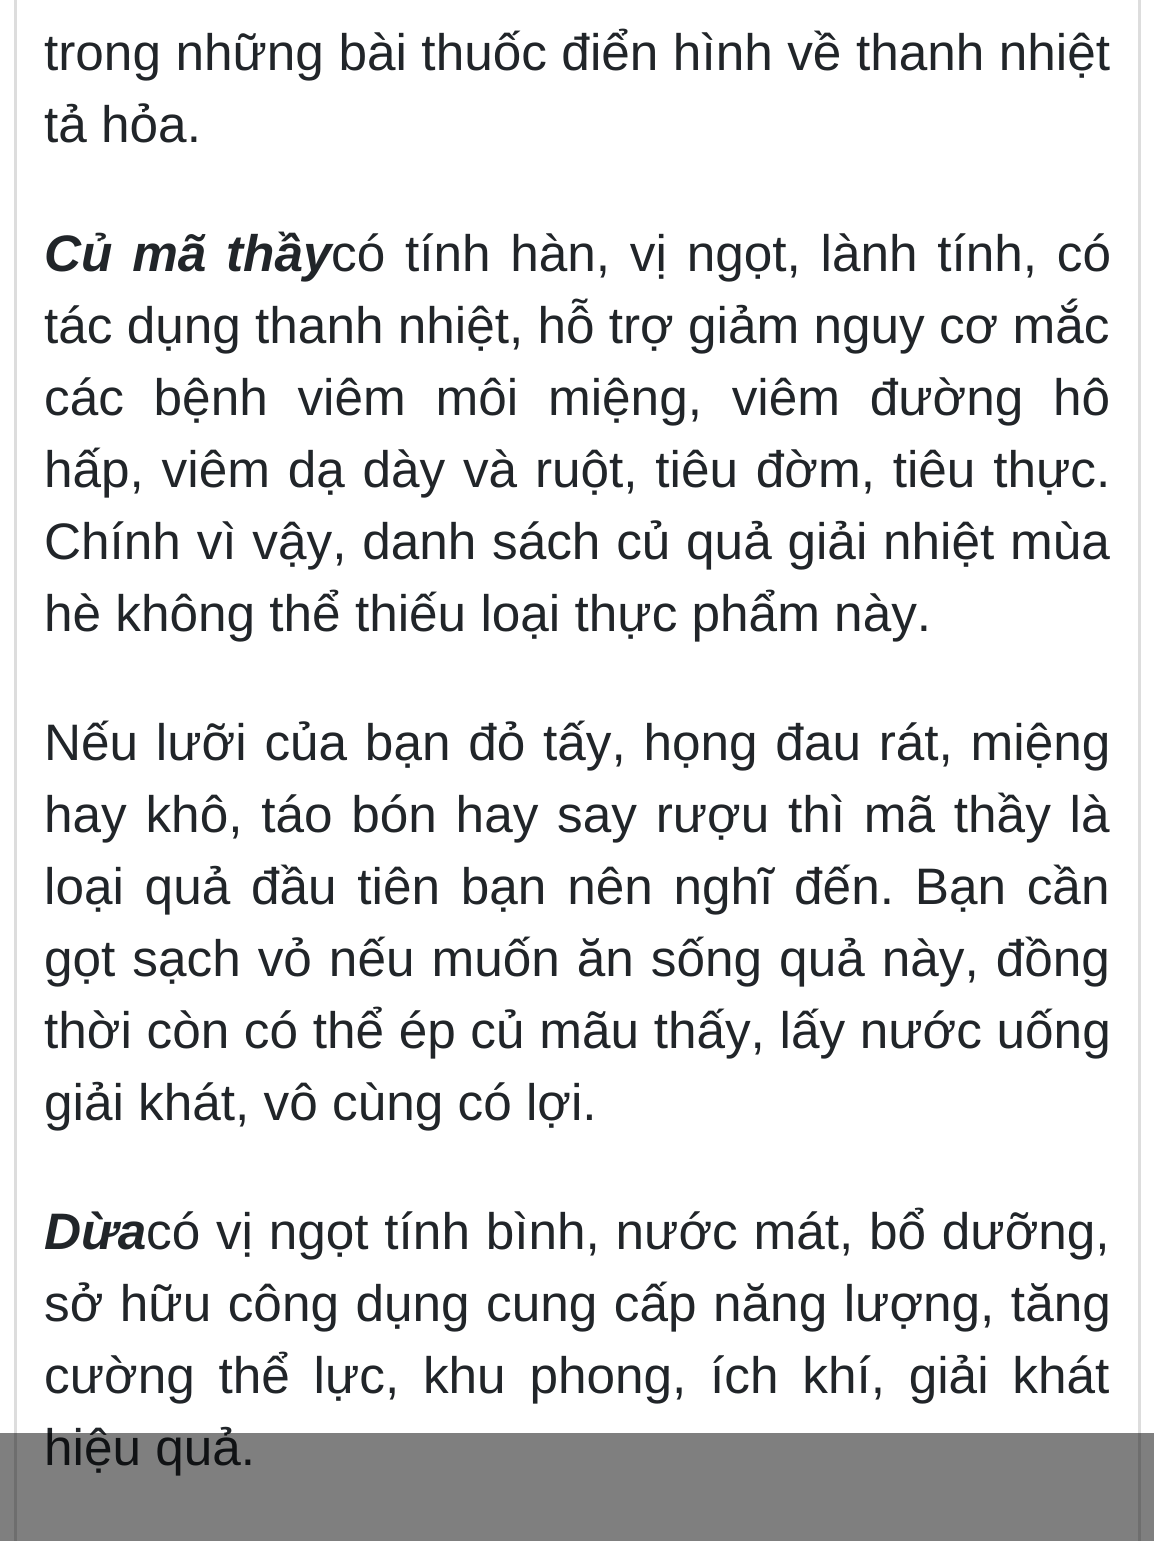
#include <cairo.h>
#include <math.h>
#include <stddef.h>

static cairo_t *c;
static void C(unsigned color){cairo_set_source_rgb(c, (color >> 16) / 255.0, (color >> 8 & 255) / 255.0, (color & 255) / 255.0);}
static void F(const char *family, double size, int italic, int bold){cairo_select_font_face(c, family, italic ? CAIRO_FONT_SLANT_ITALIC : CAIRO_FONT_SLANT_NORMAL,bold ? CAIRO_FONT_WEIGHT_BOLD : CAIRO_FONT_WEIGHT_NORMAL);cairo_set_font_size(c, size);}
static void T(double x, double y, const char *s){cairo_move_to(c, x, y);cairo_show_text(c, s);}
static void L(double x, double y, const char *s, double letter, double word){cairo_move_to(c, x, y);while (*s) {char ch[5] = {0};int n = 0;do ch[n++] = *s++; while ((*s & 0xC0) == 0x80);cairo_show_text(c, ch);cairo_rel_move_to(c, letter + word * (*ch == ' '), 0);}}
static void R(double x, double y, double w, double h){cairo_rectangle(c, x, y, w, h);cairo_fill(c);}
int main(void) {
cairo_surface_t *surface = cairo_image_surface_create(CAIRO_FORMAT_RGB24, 1154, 1541);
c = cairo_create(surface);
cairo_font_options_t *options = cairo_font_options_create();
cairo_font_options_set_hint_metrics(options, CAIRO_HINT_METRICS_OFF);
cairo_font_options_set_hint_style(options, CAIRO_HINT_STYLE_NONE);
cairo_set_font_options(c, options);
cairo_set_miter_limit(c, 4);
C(0xffffff);
cairo_paint(c);
cairo_rectangle(c,15.5,-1.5,1124,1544);
C(0xdddddd);
cairo_set_line_width(c,3);
cairo_stroke(c);
F("Liberation Sans",51.3,0,0);
C(0x212529);
L(44,70,"trong những bài thuốc điển hình về thanh nhiệt",0,.25);
T(44,142,"tả hỏa.");
F("Liberation Sans",51.3,1,1);
L(44,271,"Củ mã thầy",0,5.5);
F("Liberation Sans",51.3,0,0);
L(331,271,"có tính hàn, vị ngọt, lành tính, có",0,5.5);
T(44,343,"tác dụng thanh nhiệt, hỗ trợ giảm nguy cơ mắc");
L(44,415,"các bệnh viêm môi miệng, viêm đường hô",0,15.5);
L(44,487,"hấp, viêm dạ dày và ruột, tiêu đờm, tiêu thực.",0,3.5);
L(44,559,"Chính vì vậy, danh sách củ quả giải nhiệt mùa",0,1.5);
T(44,631,"hè không thể thiếu loại thực phẩm này.");
L(44,760,"Nếu lưỡi của bạn đỏ tấy, họng đau rát, miệng",0,3.5);
L(44,832,"hay khô, táo bón hay say rượu thì mã thầy là",0,4.5);
L(44,904,"loại quả đầu tiên bạn nên nghĩ đến. Bạn cần",0,6.5);
L(44,976,"gọt sạch vỏ nếu muốn ăn sống quả này, đồng",0,2.75);
L(44,1048,"thời còn có thể ép củ mãu thấy, lấy nước uống",0,.4);
T(44,1120,"giải khát, vô cùng có lợi.");
F("Liberation Sans",51.3,1,1);
T(44,1249,"Dừa");
F("Liberation Sans",51.3,0,0);
L(146,1249,"có vị ngọt tính bình, nước mát, bổ dưỡng,",0,1.5);
L(44,1321,"sở hữu công dụng cung cấp năng lượng, tăng",0,2.25);
L(44,1393,"cường thể lực, khu phong, ích khí, giải khát",0,9.5);
T(44,1465,"hiệu quả.");
cairo_set_source_rgba(c,0,0,0,0.5);
R(0,1433,1154,108);
cairo_surface_write_to_png(surface, "o.png");
cairo_font_options_destroy(options);
cairo_destroy(c);
cairo_surface_destroy(surface);
return 0;
}
